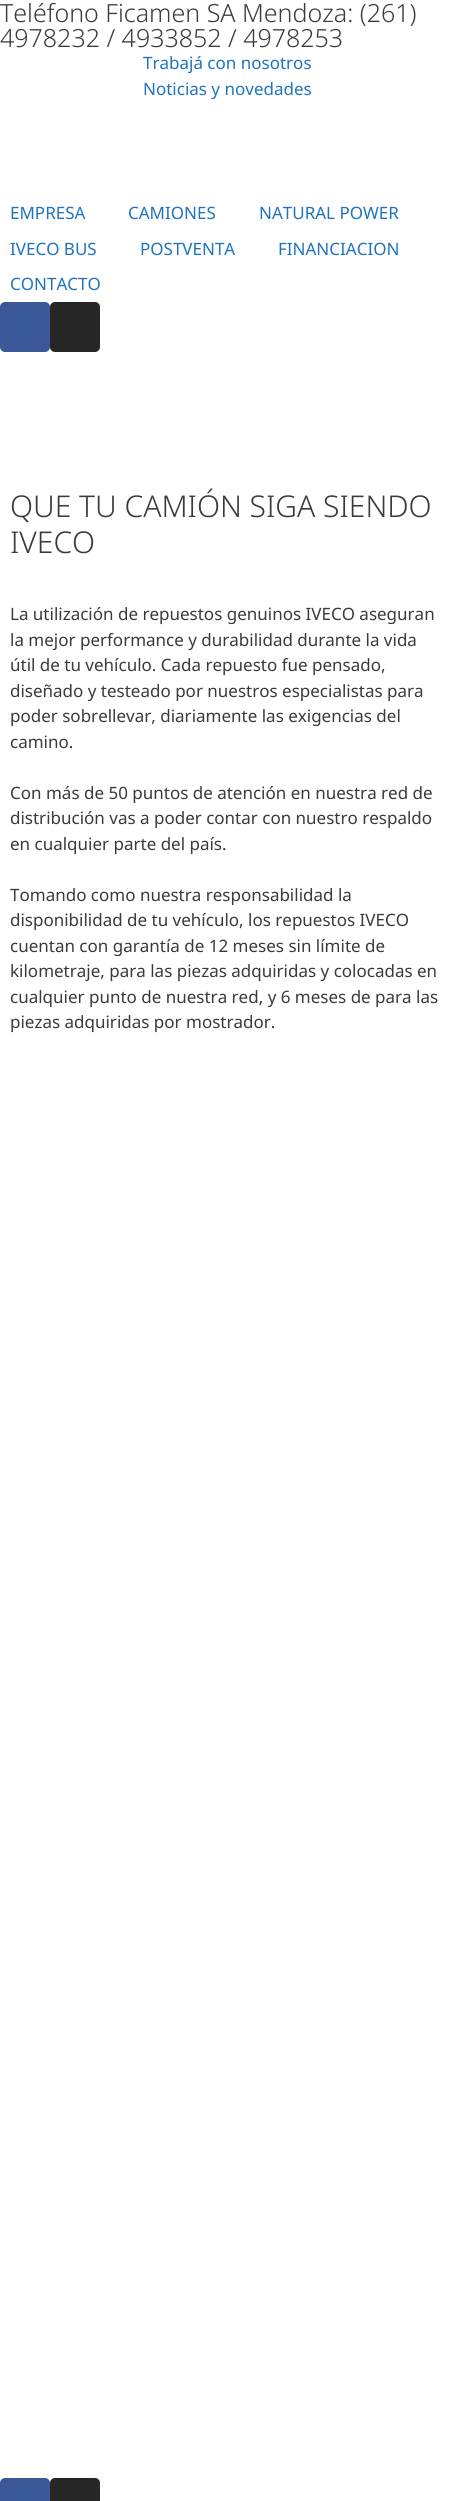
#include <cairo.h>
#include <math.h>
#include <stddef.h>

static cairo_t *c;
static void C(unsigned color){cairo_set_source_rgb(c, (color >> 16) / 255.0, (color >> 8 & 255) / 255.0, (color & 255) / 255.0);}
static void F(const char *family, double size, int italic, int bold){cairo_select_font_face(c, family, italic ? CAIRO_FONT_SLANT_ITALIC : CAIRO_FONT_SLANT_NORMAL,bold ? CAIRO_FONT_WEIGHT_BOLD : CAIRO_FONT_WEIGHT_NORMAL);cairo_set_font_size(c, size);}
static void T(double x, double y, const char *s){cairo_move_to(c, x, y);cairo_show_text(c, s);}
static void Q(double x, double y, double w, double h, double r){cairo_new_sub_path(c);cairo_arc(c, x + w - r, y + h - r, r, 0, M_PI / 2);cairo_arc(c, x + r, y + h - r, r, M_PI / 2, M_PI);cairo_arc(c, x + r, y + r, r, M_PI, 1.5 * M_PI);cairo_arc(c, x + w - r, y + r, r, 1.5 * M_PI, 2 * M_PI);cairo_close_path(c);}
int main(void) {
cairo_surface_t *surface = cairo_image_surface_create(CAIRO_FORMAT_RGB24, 455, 2501);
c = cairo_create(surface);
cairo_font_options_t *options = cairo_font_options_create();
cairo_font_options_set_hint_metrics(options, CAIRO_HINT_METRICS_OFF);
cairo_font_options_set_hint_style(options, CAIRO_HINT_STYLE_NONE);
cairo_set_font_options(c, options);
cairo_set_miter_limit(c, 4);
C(0xffffff);
cairo_paint(c);
F("Noto Sans Light",25,0,0);
C(0x3a3a3a);
T(0,22,"Teléfono Ficamen SA Mendoza: (261)");
T(0,47,"4978232 / 4933852 / 4978253");
F("Noto Sans",17,0,0);
C(0x1e73be);
T(143,69,"Trabajá con nosotros");
T(143,95,"Noticias y novedades");
T(10,219,"EMPRESA");
T(128,219,"CAMIONES");
T(259,219,"NATURAL POWER");
T(10,255,"IVECO BUS");
T(140,255,"POSTVENTA");
T(278,255,"FINANCIACION");
T(10,290,"CONTACTO");
C(0x3b5998);
Q(0,302,50,50,5);
cairo_fill(c);
C(0x262626);
Q(50,302,50,50,5);
cairo_fill(c);
F("Noto Sans Light",30,0,0);
C(0x3a3a3a);
T(10,517,"QUE TU CAMIÓN SIGA SIENDO");
T(10,553,"IVECO");
F("Noto Sans",17,0,0);
T(10,620,"La utilización de repuestos genuinos IVECO aseguran");
T(10,646,"la mejor performance y durabilidad durante la vida");
T(10,671,"útil de tu vehículo. Cada repuesto fue pensado,");
T(10,697,"diseñado y testeado por nuestros especialistas para");
T(10,722,"poder sobrellevar, diariamente las exigencias del");
T(10,748,"camino.");
T(10,799,"Con más de 50 puntos de atención en nuestra red de");
T(10,824,"distribución vas a poder contar con nuestro respaldo");
T(10,850,"en cualquier parte del país.");
T(10,901,"Tomando como nuestra responsabilidad la");
T(10,926,"disponibilidad de tu vehículo, los repuestos IVECO");
T(10,952,"cuentan con garantía de 12 meses sin límite de");
T(10,977,"kilometraje, para las piezas adquiridas y colocadas en");
T(10,1003,"cualquier punto de nuestra red, y 6 meses de para las");
T(10,1028,"piezas adquiridas por mostrador.");
C(0x3b5998);
Q(0,2478,50,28,5);
cairo_fill(c);
C(0x262626);
Q(50,2478,50,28,5);
cairo_fill(c);
cairo_surface_write_to_png(surface, "o.png");
cairo_font_options_destroy(options);
cairo_destroy(c);
cairo_surface_destroy(surface);
return 0;
}
